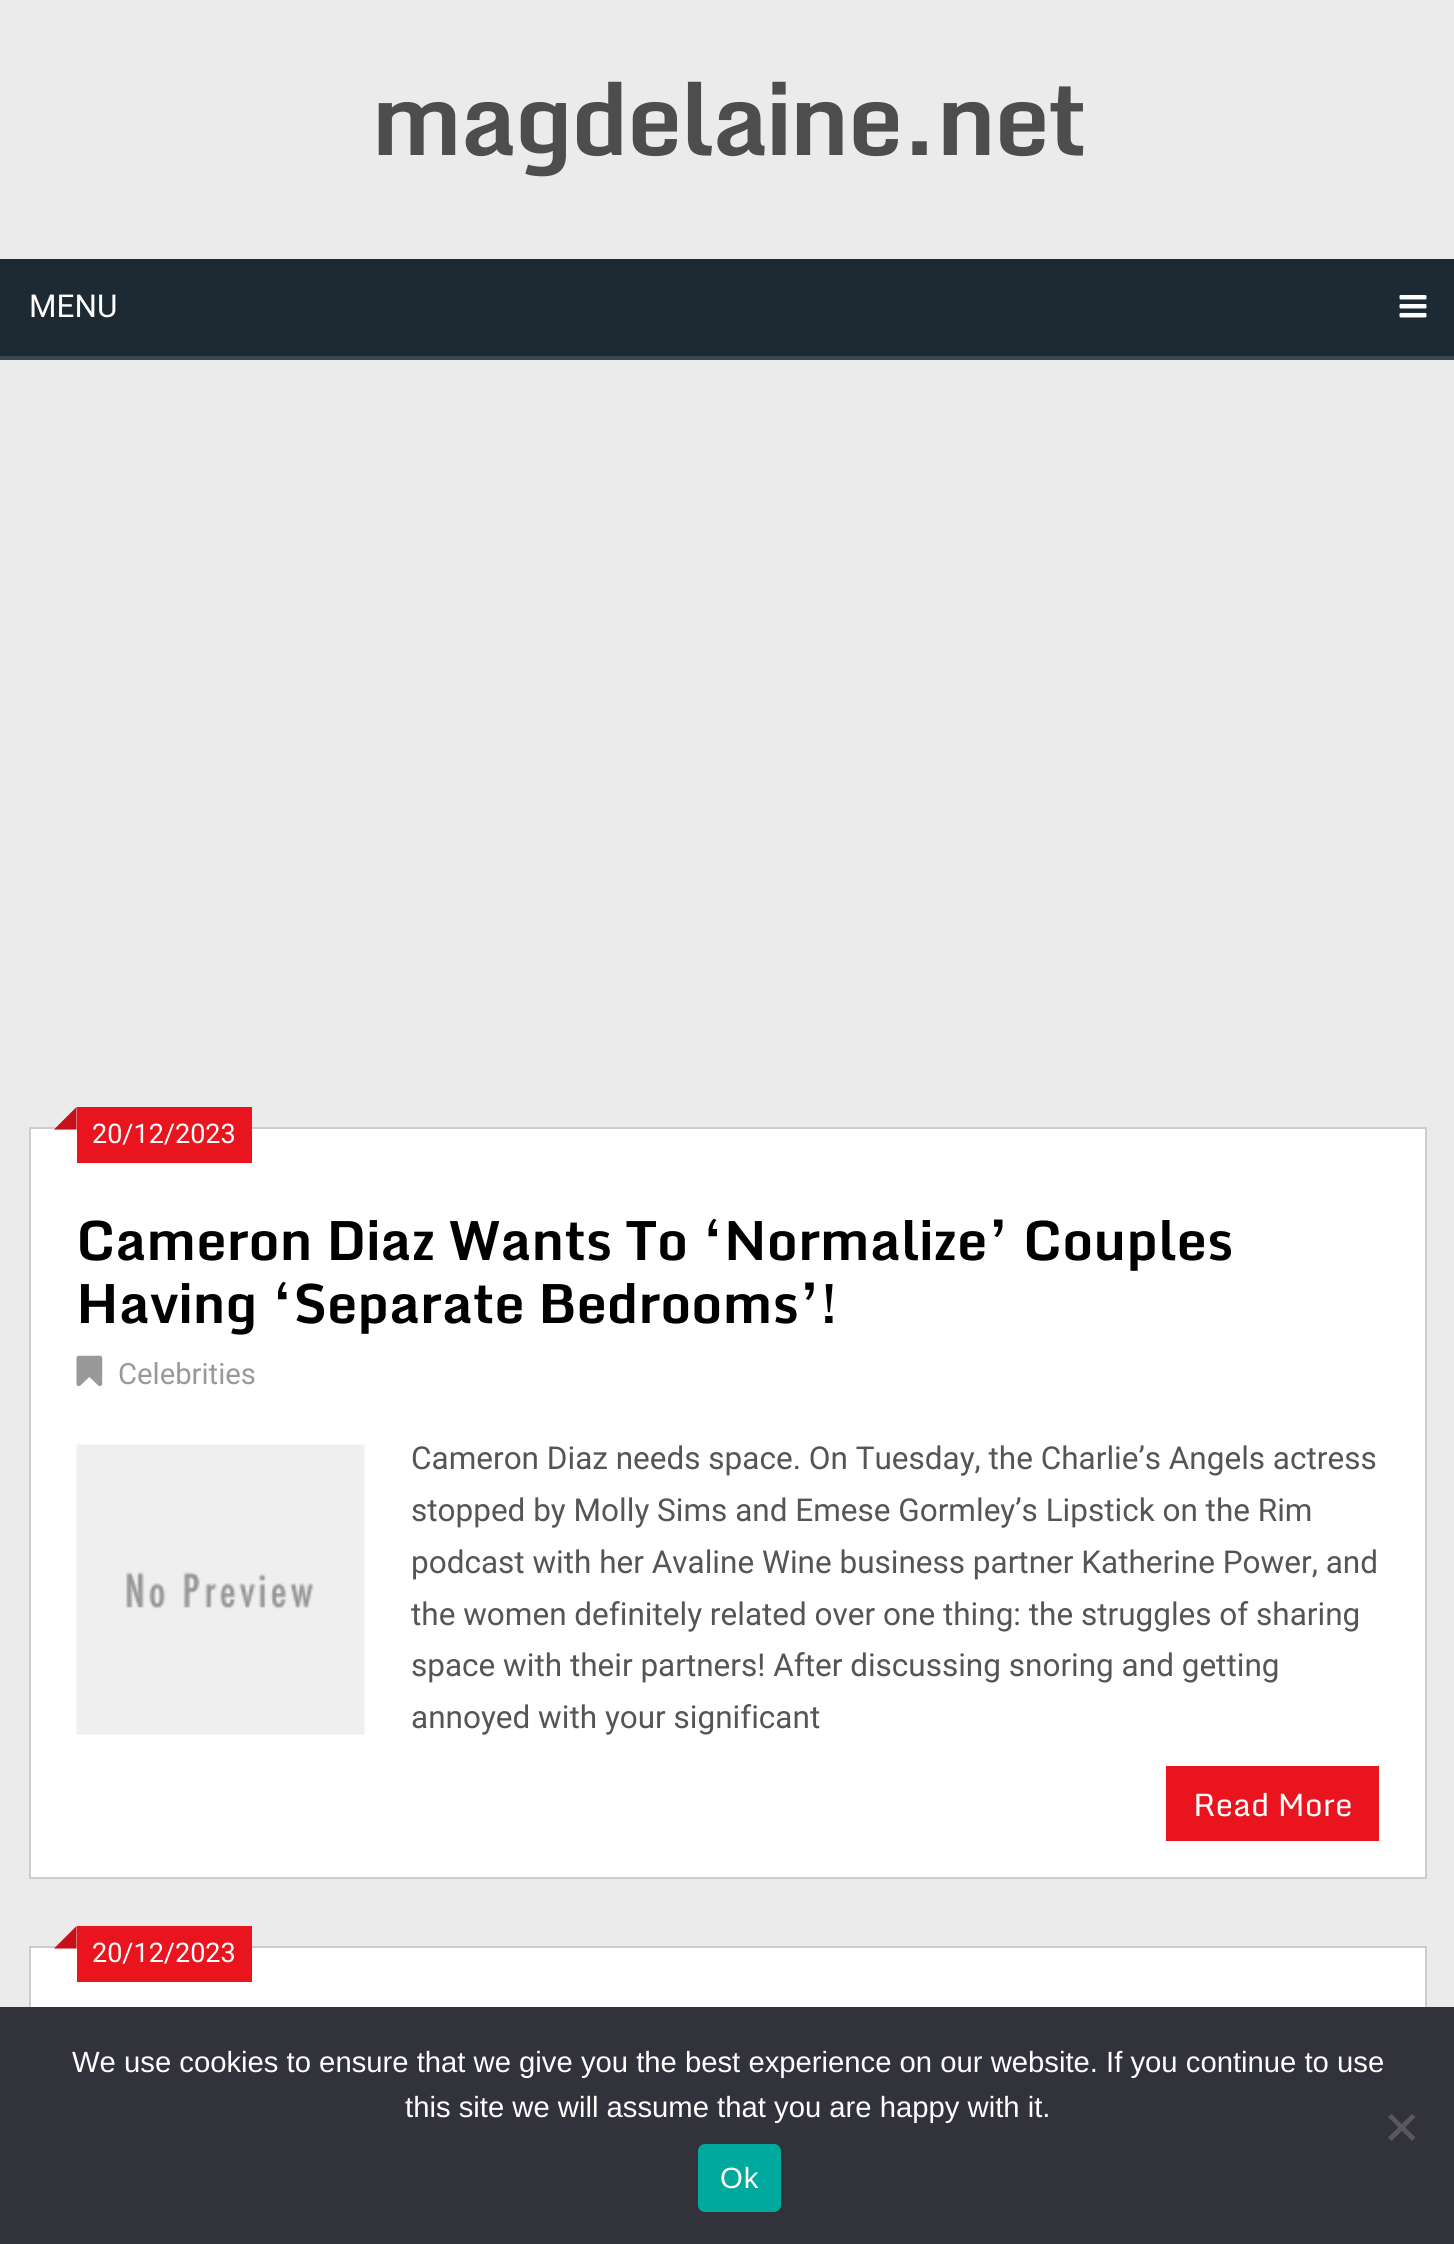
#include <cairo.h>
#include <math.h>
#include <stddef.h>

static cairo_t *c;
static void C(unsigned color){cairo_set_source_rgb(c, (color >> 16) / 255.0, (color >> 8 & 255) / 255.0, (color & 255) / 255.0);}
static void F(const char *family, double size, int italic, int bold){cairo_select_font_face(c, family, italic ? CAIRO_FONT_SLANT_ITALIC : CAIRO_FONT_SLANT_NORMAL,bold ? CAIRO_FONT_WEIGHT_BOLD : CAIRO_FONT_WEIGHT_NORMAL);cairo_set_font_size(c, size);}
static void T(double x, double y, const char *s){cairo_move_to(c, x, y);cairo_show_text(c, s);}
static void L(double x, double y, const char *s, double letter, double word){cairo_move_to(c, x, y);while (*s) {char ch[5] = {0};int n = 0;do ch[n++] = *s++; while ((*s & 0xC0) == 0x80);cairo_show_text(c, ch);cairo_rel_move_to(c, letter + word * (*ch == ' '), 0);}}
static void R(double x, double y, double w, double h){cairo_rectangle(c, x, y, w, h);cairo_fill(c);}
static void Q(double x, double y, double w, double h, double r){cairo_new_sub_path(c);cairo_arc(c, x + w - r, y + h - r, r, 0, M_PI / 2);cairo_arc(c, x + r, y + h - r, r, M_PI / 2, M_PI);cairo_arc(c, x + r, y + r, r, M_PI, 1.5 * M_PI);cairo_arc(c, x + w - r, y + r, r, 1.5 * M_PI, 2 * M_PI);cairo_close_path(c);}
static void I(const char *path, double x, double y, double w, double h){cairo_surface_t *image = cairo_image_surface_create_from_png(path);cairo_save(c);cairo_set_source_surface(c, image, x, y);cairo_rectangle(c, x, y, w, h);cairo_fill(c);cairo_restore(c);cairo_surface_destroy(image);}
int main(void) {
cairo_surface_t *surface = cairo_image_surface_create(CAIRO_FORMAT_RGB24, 1454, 2244);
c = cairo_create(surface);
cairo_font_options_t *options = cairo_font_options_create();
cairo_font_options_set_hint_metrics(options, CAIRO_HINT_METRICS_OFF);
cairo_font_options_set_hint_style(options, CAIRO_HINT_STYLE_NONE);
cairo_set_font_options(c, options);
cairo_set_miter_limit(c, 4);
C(0xebebeb);
cairo_paint(c);
F("Monda",99,0,1);
C(0x4d4d4d);
L(371,155,"magdelaine.net",-2.25,0);
C(0x364956);
R(0,356,1454,4);
C(0x1d2933);
R(0,259,1454,97);
F("Roboto",31.5,0,0);
C(0xffffff);
T(29,317,"MENU");
I("1.png",1399,295,28,23);
cairo_rectangle(c,30,1128,1396,750);
cairo_fill_preserve(c);
C(0xcdcdcd);
cairo_stroke(c);
C(0xea141f);
R(77,1107,175,56);
cairo_new_path(c);
cairo_move_to(c,76.5,1129.5);
cairo_line_to(c,54,1129.5);
cairo_line_to(c,76.5,1107);
cairo_close_path(c);
cairo_fill(c);
cairo_set_source_rgba(c,0,0,0,0.15);
cairo_new_path(c);
cairo_move_to(c,76.5,1129.5);
cairo_line_to(c,54,1129.5);
cairo_line_to(c,76.5,1107);
cairo_close_path(c);
cairo_fill(c);
F("Roboto",27,0,0);
C(0xffffff);
T(92,1143,"20/12/2023");
F("Monda",54,0,1);
C(0x000000);
T(76,1260,"Cameron Diaz Wants To ‘Normalize’ Couples");
T(76,1323,"Having ‘Separate Bedrooms’!");
I("2.png",76,1355,27,32);
F("Roboto",29.25,0,0);
C(0x999999);
T(118,1384,"Celebrities");
I("3.png",76,1444,289,291);
F("Roboto",31.5,0,0);
C(0x555555);
T(411,1469,"Cameron Diaz needs space. On Tuesday, the Charlie’s Angels actress");
T(411,1521,"stopped by Molly Sims and Emese Gormley’s Lipstick on the Rim");
T(411,1573,"podcast with her Avaline Wine business partner Katherine Power, and");
T(411,1625,"the women definitely related over one thing: the struggles of sharing");
T(411,1676,"space with their partners! After discussing snoring and getting");
T(411,1728,"annoyed with your significant");
C(0xea141f);
R(1166,1766,213,75);
F("Monda",31.5,0,0);
C(0xffffff);
T(1193,1816,"Read More");
R(31,1948,1394,59);
cairo_rectangle(c,30,1947,1396,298);
C(0xcdcdcd);
cairo_stroke(c);
C(0xea141f);
R(77,1926,175,56);
cairo_new_path(c);
cairo_move_to(c,76.5,1948.5);
cairo_line_to(c,54,1948.5);
cairo_line_to(c,76.5,1926);
cairo_close_path(c);
cairo_fill(c);
cairo_set_source_rgba(c,0,0,0,0.15);
cairo_new_path(c);
cairo_move_to(c,76.5,1948.5);
cairo_line_to(c,54,1948.5);
cairo_line_to(c,76.5,1926);
cairo_close_path(c);
cairo_fill(c);
F("Roboto",27,0,0);
C(0xffffff);
T(92,1962,"20/12/2023");
C(0x32323a);
R(0,2007,1454,237);
F("Liberation Sans",29.25,0,0);
C(0xffffff);
T(72,2072,"We use cookies to ensure that we give you the best experience on our website. If you continue to use");
T(405,2117,"this site we will assume that you are happy with it.");
C(0x59595d);
cairo_new_path(c);
cairo_move_to(c,1412,2114);
cairo_line_to(c,1415.5,2117);
cairo_line_to(c,1391.5,2141);
cairo_line_to(c,1388,2137.5);
cairo_close_path(c);
cairo_fill(c);
cairo_new_path(c);
cairo_move_to(c,1388,2117);
cairo_line_to(c,1391.5,2114);
cairo_line_to(c,1415.5,2137.5);
cairo_line_to(c,1412,2141);
cairo_close_path(c);
cairo_fill(c);
C(0x00a99d);
Q(698,2144,83,68,7);
cairo_fill(c);
C(0xffffff);
L(720,2188,"Ok",1,0);
cairo_surface_write_to_png(surface, "o.png");
cairo_font_options_destroy(options);
cairo_destroy(c);
cairo_surface_destroy(surface);
return 0;
}
